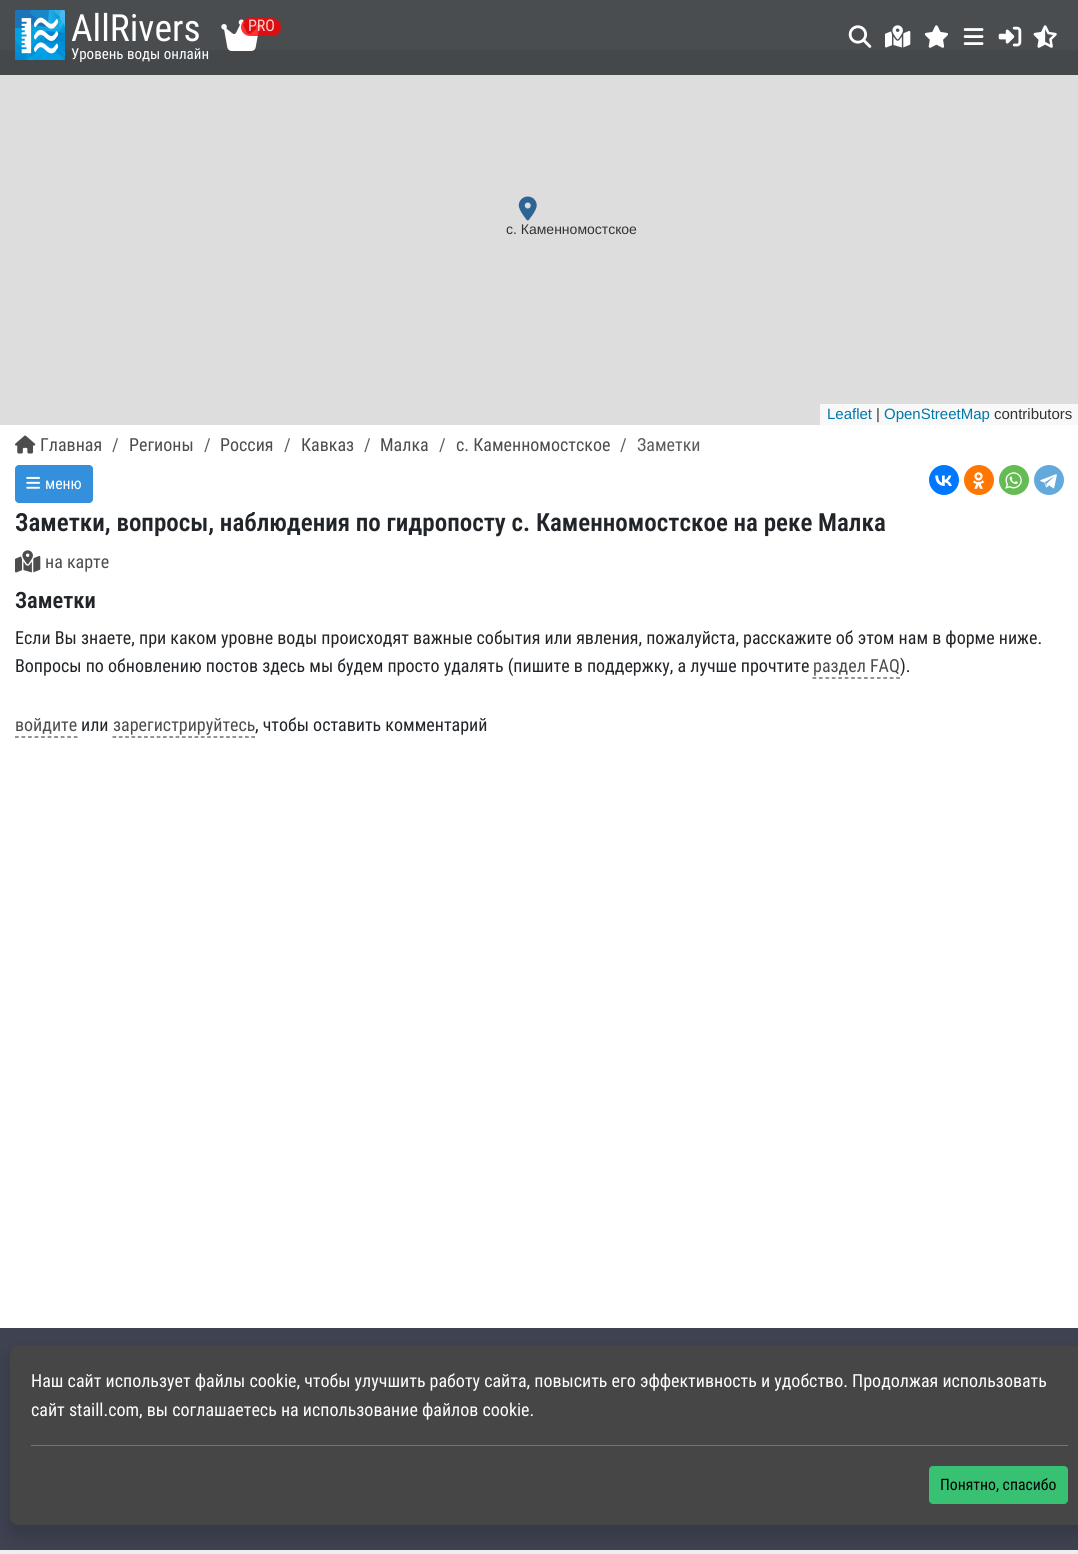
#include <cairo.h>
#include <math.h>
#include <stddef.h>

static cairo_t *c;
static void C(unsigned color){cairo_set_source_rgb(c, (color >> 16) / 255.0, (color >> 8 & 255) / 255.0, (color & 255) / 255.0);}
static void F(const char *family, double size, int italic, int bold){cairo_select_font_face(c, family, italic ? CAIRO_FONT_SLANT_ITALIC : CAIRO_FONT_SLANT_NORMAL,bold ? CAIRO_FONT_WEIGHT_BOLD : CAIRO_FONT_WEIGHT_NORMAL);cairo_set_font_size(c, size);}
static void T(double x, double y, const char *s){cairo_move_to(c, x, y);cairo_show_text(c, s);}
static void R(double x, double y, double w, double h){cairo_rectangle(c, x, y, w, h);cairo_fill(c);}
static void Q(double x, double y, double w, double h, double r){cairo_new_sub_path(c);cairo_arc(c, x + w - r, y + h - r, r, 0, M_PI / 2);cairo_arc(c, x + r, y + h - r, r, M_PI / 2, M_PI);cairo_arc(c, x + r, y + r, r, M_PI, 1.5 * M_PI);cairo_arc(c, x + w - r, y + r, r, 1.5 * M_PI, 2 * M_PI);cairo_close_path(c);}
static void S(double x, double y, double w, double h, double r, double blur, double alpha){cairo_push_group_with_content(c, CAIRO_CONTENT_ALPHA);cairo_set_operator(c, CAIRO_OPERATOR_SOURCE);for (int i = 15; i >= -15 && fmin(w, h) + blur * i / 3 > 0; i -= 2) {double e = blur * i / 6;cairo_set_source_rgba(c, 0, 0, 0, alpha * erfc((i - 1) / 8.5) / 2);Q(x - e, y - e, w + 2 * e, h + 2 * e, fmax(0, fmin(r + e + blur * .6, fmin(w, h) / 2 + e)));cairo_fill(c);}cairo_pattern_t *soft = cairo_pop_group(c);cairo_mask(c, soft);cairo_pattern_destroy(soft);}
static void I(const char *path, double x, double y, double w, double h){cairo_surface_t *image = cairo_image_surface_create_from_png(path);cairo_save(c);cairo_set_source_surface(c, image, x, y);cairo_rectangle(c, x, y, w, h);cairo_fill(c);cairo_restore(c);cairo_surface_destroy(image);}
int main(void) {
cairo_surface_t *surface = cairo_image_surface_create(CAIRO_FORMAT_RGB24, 1078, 1554);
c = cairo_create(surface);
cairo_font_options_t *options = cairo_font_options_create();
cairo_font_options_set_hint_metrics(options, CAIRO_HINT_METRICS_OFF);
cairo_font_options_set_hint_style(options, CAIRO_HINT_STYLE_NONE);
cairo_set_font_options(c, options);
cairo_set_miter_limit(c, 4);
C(0xefefef);
cairo_paint(c);
C(0x4a4d50);
R(0,0,1078,50);
C(0x44484b);
R(0,50,1078,25);
I("1.png",15,10,50,50);
F("Roboto Condensed",37.5,0,0);
C(0xffffff);
T(71,41,"AllRivers");
F("Roboto Condensed",15,0,0);
T(71,59,"Уровень воды онлайн");
I("2.png",221,19,41,32);
cairo_set_source_rgba(c,1,0,0,0.8);
Q(241,18,40,18,9);
cairo_fill(c);
F("Roboto Condensed",16,0,0);
C(0xf8d0d0);
T(248,31,"PRO");
I("3.png",848,25,24,23);
I("4.png",885,25,26,23);
I("5.png",924,25,24,23);
I("6.png",963,28,21,17);
I("7.png",998,26,24,21);
I("8.png",1033,25,24,23);
C(0xffffff);
R(0,425,1078,903);
C(0xdddddd);
R(0,75,1078,350);
I("9.png",518,196,19,25);
F("Liberation Sans",14,0,0);
C(0x333333);
T(506,234,"с. Каменномостское");
C(0xf8f8f8);
R(820,404,258,21);
F("Liberation Sans",15,0,0);
C(0x0078a8);
T(827,419,"Leaflet");
C(0x333333);
T(876,419,"|");
C(0x0078a8);
T(884,419,"OpenStreetMap");
C(0x333333);
T(994,419,"contributors");
I("10.png",15,435,21,19);
F("Roboto Condensed",18,0,0);
C(0x4d4d4d);
T(40,451,"Главная");
C(0x595c5f);
T(112,451,"/");
C(0x4d4d4d);
T(129,451,"Регионы");
C(0x595c5f);
T(204,451,"/");
C(0x4d4d4d);
T(220,451,"Россия");
C(0x595c5f);
T(284,451,"/");
C(0x4d4d4d);
T(301,451,"Кавказ");
C(0x595c5f);
T(364,451,"/");
C(0x4d4d4d);
T(380,451,"Малка");
C(0x595c5f);
T(439,451,"/");
C(0x4d4d4d);
T(456,451,"с. Каменномостское");
C(0x595c5f);
T(620,451,"/");
T(637,451,"Заметки");
C(0x3490dc);
Q(15.5,465.5,77,37,3.5);
cairo_fill_preserve(c);
cairo_set_line_width(c,1);
cairo_stroke(c);
I("11.png",26,476,14,13);
F("Roboto Condensed",15.75,0,0);
C(0xffffff);
T(45,489,"меню");
C(0x0077ff);
cairo_new_path(c);
cairo_arc(c,944,480,15,0,2 * M_PI);
cairo_fill(c);
I("12.png",935,475,17,11);
C(0xff7700);
cairo_arc(c,979,480,15,0,2 * M_PI);
cairo_fill(c);
I("13.png",973,472,12,17);
C(0x65bc54);
cairo_arc(c,1014,480,15,0,2 * M_PI);
cairo_fill(c);
I("14.png",1005,472,17,17);
C(0x64a9dc);
cairo_arc(c,1049,480,15,0,2 * M_PI);
cairo_fill(c);
I("15.png",1040,474,17,15);
F("Roboto Condensed SemiBold",25,0,0);
C(0x212529);
T(15,531,"Заметки, вопросы, наблюдения по гидропосту с. Каменномостское на реке Малка");
I("16.png",15,550,26,23);
F("Roboto Condensed",18,0,0);
C(0x4d4d4d);
T(45,568,"на карте");
F("Roboto Condensed SemiBold",22.5,0,0);
C(0x212529);
T(15,608,"Заметки");
F("Roboto Condensed",18,0,0);
T(15,644,"Если Вы знаете, при каком уровне воды происходят важные события или явления, пожалуйста, расскажите об этом нам в форме ниже.");
T(15,672,"Вопросы по обновлению постов здесь мы будем просто удалять (пишите в поддержку, а лучше прочтите");
C(0x4d4d4d);
T(813,672,"раздел FAQ");
cairo_new_path(c);
cairo_move_to(c,812.5,678);
cairo_line_to(c,900,678);
cairo_set_line_width(c,1.2);
cairo_set_dash(c,(double[]){3.75,2.69},2,0);
cairo_stroke(c);
C(0x212529);
T(900,672,").");
C(0x4d4d4d);
T(15,731,"войдите");
cairo_new_path(c);
cairo_move_to(c,15,737);
cairo_line_to(c,77.5,737);
cairo_set_dash(c,(double[]){3.75,2.78},2,0);
cairo_stroke(c);
C(0x212529);
T(81,731,"или");
C(0x4d4d4d);
T(113,731,"зарегистрируйтесь");
cairo_new_path(c);
cairo_move_to(c,112.5,737);
cairo_line_to(c,255,737);
cairo_set_dash(c,(double[]){3.75,2.56},2,0);
cairo_stroke(c);
C(0x212529);
T(255,731,", чтобы оставить комментарий");
C(0x3e4251);
R(0,1328,1078,222);
C(0x000000);
S(10,1356,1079,179,8,10,.15);
C(0x464646);
Q(10,1346,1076,179,8);
cairo_fill(c);
C(0xffffff);
T(31,1387,"Наш сайт использует файлы cookie, чтобы улучшить работу сайта, повысить его эффективность и удобство. Продолжая использовать");
T(31,1416,"сайт staill.com, вы соглашаетесь на использование файлов cookie.");
C(0x747474);
R(31,1445,1037,1);
C(0x38c172);
Q(929.5,1466.5,138,37,3.5);
cairo_fill_preserve(c);
cairo_set_line_width(c,1);
cairo_set_dash(c,NULL,0,0);
cairo_stroke(c);
F("Roboto Condensed",15.75,0,0);
C(0x000000);
T(940,1490,"Понятно, спасибо");
cairo_surface_write_to_png(surface, "o.png");
cairo_font_options_destroy(options);
cairo_destroy(c);
cairo_surface_destroy(surface);
return 0;
}
